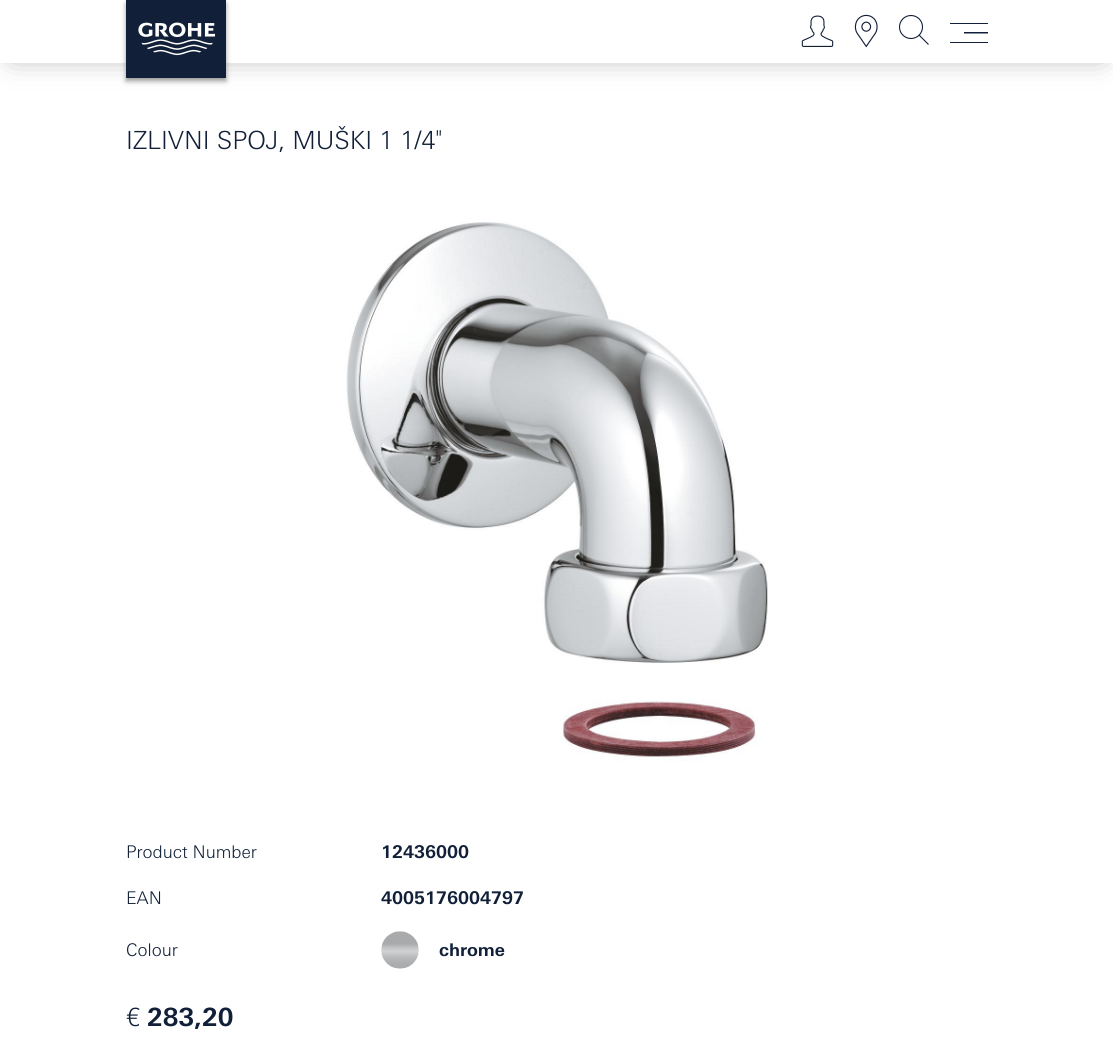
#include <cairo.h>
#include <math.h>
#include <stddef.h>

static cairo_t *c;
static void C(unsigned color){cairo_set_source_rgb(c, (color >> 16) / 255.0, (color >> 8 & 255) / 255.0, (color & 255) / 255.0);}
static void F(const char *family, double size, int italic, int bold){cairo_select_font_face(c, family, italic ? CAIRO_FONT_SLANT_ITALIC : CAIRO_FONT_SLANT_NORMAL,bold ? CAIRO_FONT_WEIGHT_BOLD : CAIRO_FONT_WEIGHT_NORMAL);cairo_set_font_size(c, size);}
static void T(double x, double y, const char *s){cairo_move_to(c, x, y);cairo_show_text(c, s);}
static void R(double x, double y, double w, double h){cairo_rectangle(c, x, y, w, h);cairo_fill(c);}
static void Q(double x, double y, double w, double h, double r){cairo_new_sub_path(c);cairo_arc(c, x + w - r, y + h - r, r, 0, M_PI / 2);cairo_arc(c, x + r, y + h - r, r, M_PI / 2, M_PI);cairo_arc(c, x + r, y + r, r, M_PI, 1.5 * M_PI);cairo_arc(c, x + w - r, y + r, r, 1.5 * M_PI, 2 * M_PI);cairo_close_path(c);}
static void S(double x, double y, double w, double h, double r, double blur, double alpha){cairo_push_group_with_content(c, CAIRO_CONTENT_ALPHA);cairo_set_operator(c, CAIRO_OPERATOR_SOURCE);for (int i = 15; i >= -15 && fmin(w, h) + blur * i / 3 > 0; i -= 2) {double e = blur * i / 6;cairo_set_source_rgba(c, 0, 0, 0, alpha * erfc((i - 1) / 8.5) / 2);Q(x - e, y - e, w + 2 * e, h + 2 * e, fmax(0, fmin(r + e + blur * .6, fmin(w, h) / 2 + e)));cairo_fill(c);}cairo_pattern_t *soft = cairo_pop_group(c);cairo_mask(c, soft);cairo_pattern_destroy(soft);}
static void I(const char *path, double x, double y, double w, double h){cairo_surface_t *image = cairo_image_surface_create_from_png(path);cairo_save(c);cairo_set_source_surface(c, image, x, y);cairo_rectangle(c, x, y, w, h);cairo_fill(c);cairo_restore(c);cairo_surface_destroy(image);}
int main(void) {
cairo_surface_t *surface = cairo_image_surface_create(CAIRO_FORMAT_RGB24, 1113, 1043);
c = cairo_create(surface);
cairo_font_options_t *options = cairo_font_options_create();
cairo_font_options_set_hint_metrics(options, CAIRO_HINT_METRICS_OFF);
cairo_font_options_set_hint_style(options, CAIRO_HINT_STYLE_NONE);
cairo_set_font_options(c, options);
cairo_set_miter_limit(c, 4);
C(0xffffff);
cairo_paint(c);
C(0x000000);
S(13,16,1088,38,0,15,.4);
C(0xffffff);
R(0,0,1113,63);
C(0x000000);
S(126,4,100,77,0,2.5,.4);
C(0x112038);
R(126,0,100,78);
I("1.png",138,22,78,34);
I("2.png",801,15,33,32);
I("3.png",854,14,24,34);
cairo_new_path(c);
cairo_move_to(c,928.5,44.5);
cairo_line_to(c,919,35);
cairo_close_path(c);
cairo_set_line_width(c,1.1);
cairo_stroke(c);
cairo_arc(c,911,27,11.5,0,2 * M_PI);
cairo_stroke(c);
cairo_save(c);
cairo_rectangle(c,950,23,39,21);
cairo_clip(c);
cairo_new_path(c);
cairo_move_to(c,950,22.5);
cairo_line_to(c,988,22.5);
cairo_line_to(c,988,24);
cairo_line_to(c,950,24);
cairo_close_path(c);
cairo_move_to(c,964,32);
cairo_line_to(c,988,32);
cairo_line_to(c,988,33.5);
cairo_line_to(c,964,33.5);
cairo_close_path(c);
cairo_move_to(c,950,42);
cairo_line_to(c,988,42);
cairo_line_to(c,988,43);
cairo_line_to(c,950,43);
cairo_close_path(c);
cairo_fill(c);
cairo_restore(c);
F("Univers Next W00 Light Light",25,0,0);
T(126,149,"IZLIVNI SPOJ, MUŠKI 1 1/4");
F("Roboto Light",25,0,0);
T(435,149,"″");
I("4.png",343,222,425,539);
F("Univers Next W00 Light Light",17.5,0,0);
T(126,858,"Product Number");
F("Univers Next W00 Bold",17.5,0,1);
T(381,858,"12436000");
F("Univers Next W00 Light Light",17.5,0,0);
T(126,904,"EAN");
F("Univers Next W00 Bold",17.5,0,1);
T(381,904,"4005176004797");
F("Univers Next W00 Light Light",17.5,0,0);
T(126,956,"Colour");
I("5.png",381,931,38,38);
F("Univers Next W00 Bold",17.5,0,1);
T(439,956,"chrome");
F("Univers Next W00 Light Light",25,0,0);
T(126,1026,"€");
F("Univers Next W00 Bold",25,0,1);
T(147,1026,"283,20");
cairo_surface_write_to_png(surface, "o.png");
cairo_font_options_destroy(options);
cairo_destroy(c);
cairo_surface_destroy(surface);
return 0;
}
